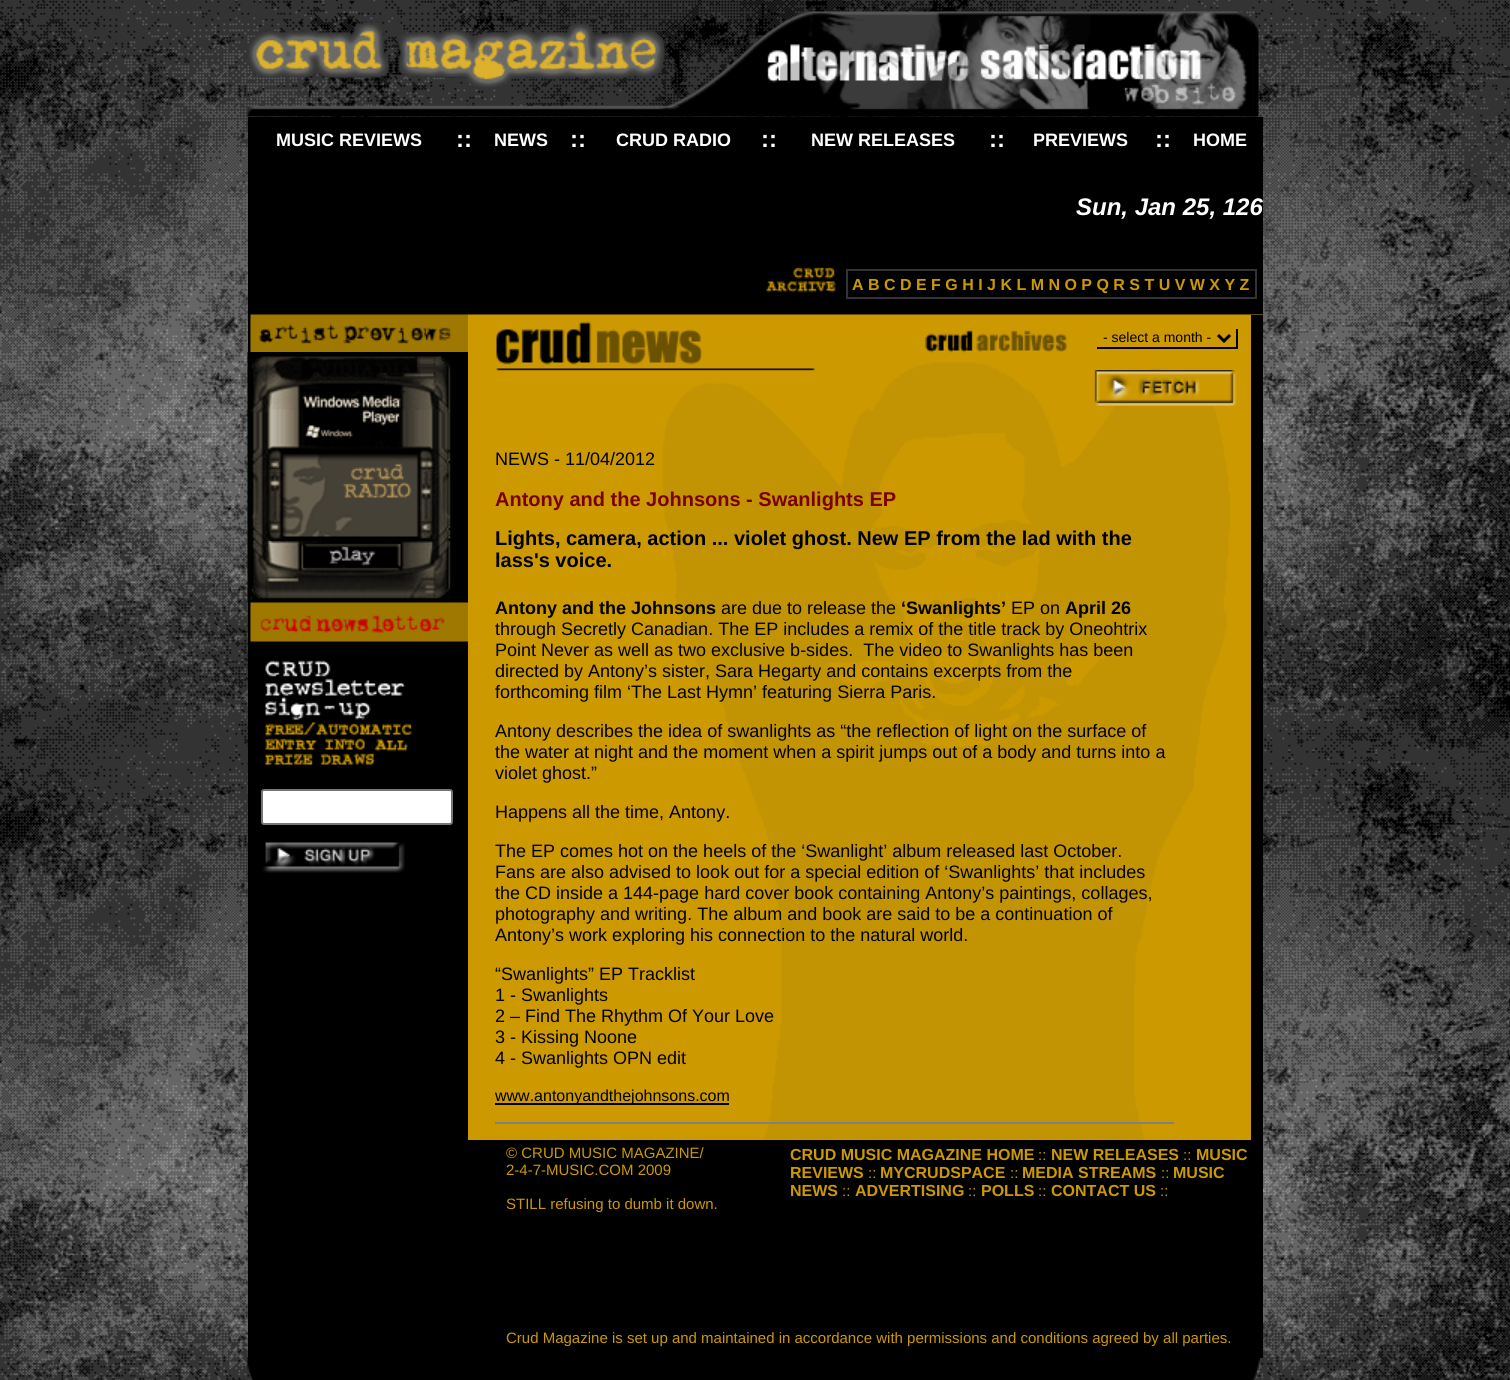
#include <cairo.h>
#include <math.h>
#include <stddef.h>

static cairo_t *c;
static void C(unsigned color){cairo_set_source_rgb(c, (color >> 16) / 255.0, (color >> 8 & 255) / 255.0, (color & 255) / 255.0);}
static void F(const char *family, double size, int italic, int bold){cairo_select_font_face(c, family, italic ? CAIRO_FONT_SLANT_ITALIC : CAIRO_FONT_SLANT_NORMAL,bold ? CAIRO_FONT_WEIGHT_BOLD : CAIRO_FONT_WEIGHT_NORMAL);cairo_set_font_size(c, size);}
static void T(double x, double y, const char *s){cairo_move_to(c, x, y);cairo_show_text(c, s);}
static void R(double x, double y, double w, double h){cairo_rectangle(c, x, y, w, h);cairo_fill(c);}
static void Q(double x, double y, double w, double h, double r){cairo_new_sub_path(c);cairo_arc(c, x + w - r, y + h - r, r, 0, M_PI / 2);cairo_arc(c, x + r, y + h - r, r, M_PI / 2, M_PI);cairo_arc(c, x + r, y + r, r, M_PI, 1.5 * M_PI);cairo_arc(c, x + w - r, y + r, r, 1.5 * M_PI, 2 * M_PI);cairo_close_path(c);}
static void I(const char *path, double x, double y, double w, double h){cairo_surface_t *image = cairo_image_surface_create_from_png(path);cairo_save(c);cairo_set_source_surface(c, image, x, y);cairo_rectangle(c, x, y, w, h);cairo_fill(c);cairo_restore(c);cairo_surface_destroy(image);}
int main(void) {
cairo_surface_t *surface = cairo_image_surface_create(CAIRO_FORMAT_RGB24, 1510, 1380);
c = cairo_create(surface);
cairo_font_options_t *options = cairo_font_options_create();
cairo_font_options_set_hint_metrics(options, CAIRO_HINT_METRICS_OFF);
cairo_font_options_set_hint_style(options, CAIRO_HINT_STYLE_NONE);
cairo_set_font_options(c, options);
cairo_set_miter_limit(c, 4);
C(0xffffff);
cairo_paint(c);
I("1.png",0,0,1510,1380);
I("2.png",247,11,1012,106);
C(0x000000);
R(248,117,1015,198);
F("Liberation Sans",18,0,1);
C(0xffffff);
T(276,146,"MUSIC REVIEWS");
F("Liberation Sans",24,0,1);
T(456,147,"::");
F("Liberation Sans",18,0,1);
T(494,146,"NEWS");
F("Liberation Sans",24,0,1);
T(570,147,"::");
F("Liberation Sans",18,0,1);
T(616,146,"CRUD RADIO");
F("Liberation Sans",24,0,1);
T(761,147,"::");
F("Liberation Sans",18,0,1);
T(811,146,"NEW RELEASES");
F("Liberation Sans",24,0,1);
T(989,147,"::");
F("Liberation Sans",18,0,1);
T(1033,146,"PREVIEWS");
F("Liberation Sans",24,0,1);
T(1155,147,"::");
F("Liberation Sans",18,0,1);
T(1193,146,"HOME");
F("Liberation Sans",24,1,1);
T(1076,215,"Sun, Jan 25, 126");
I("3.png",766,267,70,26);
cairo_rectangle(c,847,270,409,28);
C(0x333333);
cairo_stroke(c);
F("Liberation Sans",16,0,1);
C(0xcc9900);
T(852,290,"A B C D E F G H I J K L M N O P Q R S T U V W X Y Z");
C(0x000000);
R(248,315,220,825);
I("4.png",250,314,218,38);
I("5.png",247,352,204,189);
I("6.png",247,541,204,62);
I("7.png",250,602,218,40);
I("8.png",265,660,148,105);
C(0xffffff);
Q(262,790,190,34,2);
cairo_fill_preserve(c);
C(0x767676);
cairo_stroke(c);
I("9.png",262,842,143,31);
C(0xcc9900);
R(468,1139,783,1);
I("10.png",468,314,795,826);
I("11.png",496,321,319,50);
I("12.png",925,330,142,23);
C(0x000000);
R(1236,329,2,19);
R(1097,347,141,2);
cairo_new_path(c);
cairo_move_to(c,1218,335);
cairo_line_to(c,1224,341);
cairo_line_to(c,1230,335);
cairo_set_line_width(c,3);
cairo_stroke(c);
F("Liberation Sans",14,0,0);
T(1103,342,"- select a month -");
I("13.png",1094,370,143,36);
R(1251,315,12,825);
F("Liberation Sans",18,0,0);
T(495,465,"NEWS - 11/04/2012");
F("Liberation Sans",20,0,1);
C(0x7a0101);
T(495,506,"Antony and the Johnsons - Swanlights EP");
C(0x000000);
T(495,545,"Lights, camera, action ... violet ghost. New EP from the lad with the");
T(495,567,"lass's voice.");
F("Liberation Sans",18,0,1);
T(495,614,"Antony and the Johnsons");
F("Liberation Sans",18,0,0);
T(721,614,"are due to release the");
F("Liberation Sans",18,0,1);
T(901,614,"‘Swanlights’");
F("Liberation Sans",18,0,0);
T(1011,614,"EP on");
F("Liberation Sans",18,0,1);
T(1065,614,"April 26");
F("Liberation Sans",18,0,0);
T(495,635,"through Secretly Canadian. The EP includes a remix of the title track by Oneohtrix");
T(495,656,"Point Never as well as two exclusive b-sides.  The video to Swanlights has been");
T(495,677,"directed by Antony’s sister, Sara Hegarty and contains excerpts from the");
T(495,698,"forthcoming film ‘The Last Hymn’ featuring Sierra Paris.");
T(495,737,"Antony describes the idea of swanlights as “the reflection of light on the surface of");
T(495,758,"the water at night and the moment when a spirit jumps out of a body and turns into a");
T(495,779,"violet ghost.”");
T(495,818,"Happens all the time, Antony.");
T(495,857,"The EP comes hot on the heels of the ‘Swanlight’ album released last October.");
T(495,878,"Fans are also advised to look out for a special edition of ‘Swanlights’ that includes");
T(495,899,"the CD inside a 144-page hard cover book containing Antony’s paintings, collages,");
T(495,920,"photography and writing. The album and book are said to be a continuation of");
T(495,941,"Antony’s work exploring his connection to the natural world.");
T(495,980,"“Swanlights” EP Tracklist");
T(495,1001,"1 - Swanlights");
T(495,1022,"2 – Find The Rhythm Of Your Love");
T(495,1043,"3 - Kissing Noone");
T(495,1064,"4 - Swanlights OPN edit");
R(495,1103,234,2);
F("Liberation Sans",16,0,0);
T(495,1101,"www.antonyandthejohnsons.com");
C(0x808080);
R(495,1122,679,2);
C(0x000000);
R(248,1140,1015,218);
F("Liberation Sans",15,0,0);
C(0xcc9900);
T(506,1158,"© CRUD MUSIC MAGAZINE/");
T(506,1175,"2-4-7-MUSIC.COM 2009");
T(506,1209,"STILL refusing to dumb it down.");
F("Liberation Sans",16,0,1);
T(790,1160,"CRUD MUSIC MAGAZINE HOME");
F("Liberation Sans",15,0,0);
T(1038,1160,"::");
F("Liberation Sans",16,0,1);
T(1051,1160,"NEW RELEASES");
F("Liberation Sans",15,0,0);
T(1183,1160,"::");
F("Liberation Sans",16,0,1);
T(1196,1160,"MUSIC");
T(790,1178,"REVIEWS");
F("Liberation Sans",15,0,0);
T(868,1178,"::");
F("Liberation Sans",16,0,1);
T(880,1178,"MYCRUDSPACE");
F("Liberation Sans",15,0,0);
T(1010,1178,"::");
F("Liberation Sans",16,0,1);
T(1022,1178,"MEDIA STREAMS");
F("Liberation Sans",15,0,0);
T(1161,1178,"::");
F("Liberation Sans",16,0,1);
T(1173,1178,"MUSIC");
T(790,1196,"NEWS");
F("Liberation Sans",15,0,0);
T(842,1196,"::");
F("Liberation Sans",16,0,1);
T(855,1196,"ADVERTISING");
F("Liberation Sans",15,0,0);
T(968,1196,"::");
F("Liberation Sans",16,0,1);
T(981,1196,"POLLS");
F("Liberation Sans",15,0,0);
T(1038,1196,"::");
F("Liberation Sans",16,0,1);
T(1051,1196,"CONTACT US");
F("Liberation Sans",15,0,0);
T(1160,1196,"::");
T(506,1343,"Crud Magazine is set up and maintained in accordance with permissions and conditions agreed by all parties.");
I("14.png",247,1357,1013,23);
cairo_surface_write_to_png(surface, "o.png");
cairo_font_options_destroy(options);
cairo_destroy(c);
cairo_surface_destroy(surface);
return 0;
}
